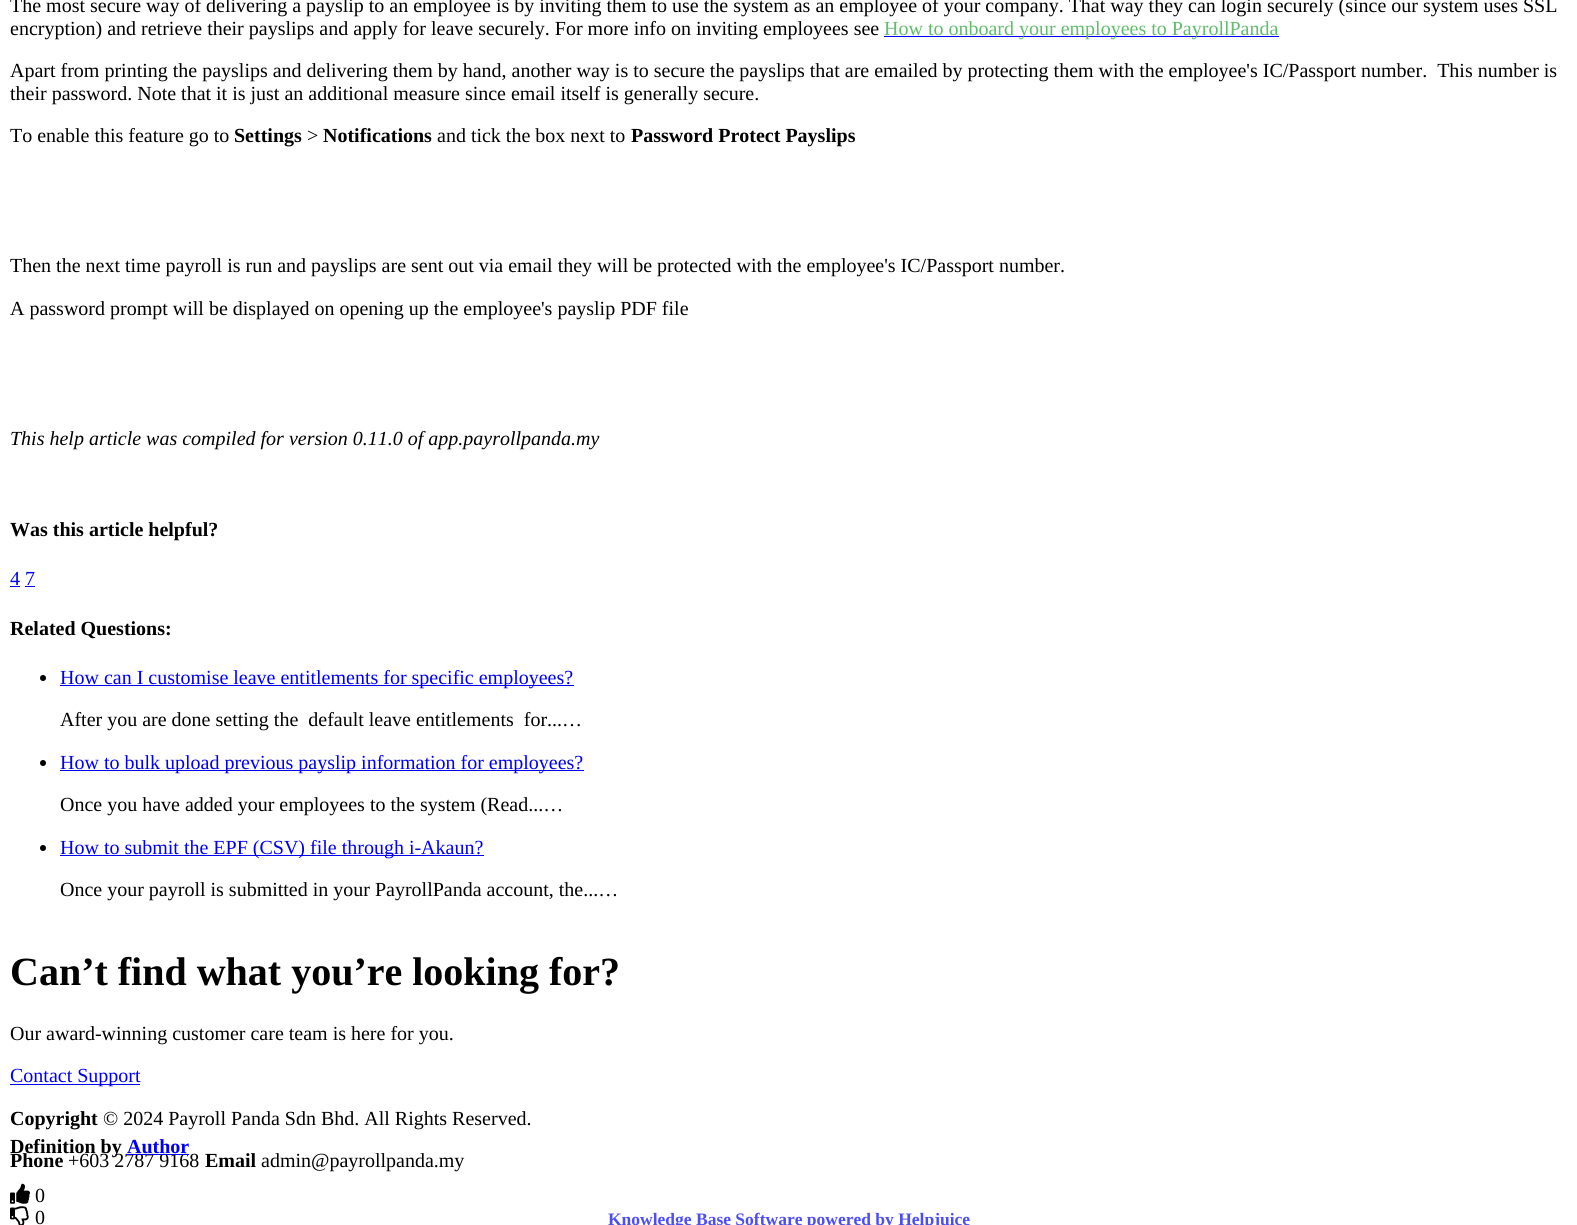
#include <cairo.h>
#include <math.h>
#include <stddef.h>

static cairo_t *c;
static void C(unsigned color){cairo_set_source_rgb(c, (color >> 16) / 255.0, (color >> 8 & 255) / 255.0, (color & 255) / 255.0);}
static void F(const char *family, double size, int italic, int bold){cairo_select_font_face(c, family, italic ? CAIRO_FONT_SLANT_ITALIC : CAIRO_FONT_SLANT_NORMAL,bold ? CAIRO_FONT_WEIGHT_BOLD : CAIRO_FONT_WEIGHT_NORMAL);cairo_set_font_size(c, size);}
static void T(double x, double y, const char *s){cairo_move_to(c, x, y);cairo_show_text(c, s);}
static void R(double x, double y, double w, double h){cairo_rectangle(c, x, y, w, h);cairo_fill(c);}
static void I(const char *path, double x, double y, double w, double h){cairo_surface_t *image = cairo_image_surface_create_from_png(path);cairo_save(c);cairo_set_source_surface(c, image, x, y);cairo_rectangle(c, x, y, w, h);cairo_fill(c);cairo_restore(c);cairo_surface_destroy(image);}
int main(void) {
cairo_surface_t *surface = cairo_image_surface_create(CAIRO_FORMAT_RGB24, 1577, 1225);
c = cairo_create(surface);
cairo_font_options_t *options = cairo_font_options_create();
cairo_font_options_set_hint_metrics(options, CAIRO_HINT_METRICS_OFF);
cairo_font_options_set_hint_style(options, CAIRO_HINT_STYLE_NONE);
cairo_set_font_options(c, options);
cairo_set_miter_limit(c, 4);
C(0xffffff);
cairo_paint(c);
F("Liberation Serif",20,0,0);
C(0x000000);
T(10,12,"The most secure way of delivering a payslip to an employee is by inviting them to use the system as an employee of your company. That way they can login securely (since our system uses SSL");
T(10,35,"encryption) and retrieve their payslips and apply for leave securely. For more info on inviting employees see");
C(0x0000ee);
R(884,36,395,1);
C(0x61bd6d);
T(884,35,"How to onboard your employees to PayrollPanda");
C(0x000000);
T(10,77,"Apart from printing the payslips and delivering them by hand, another way is to secure the payslips that are emailed by protecting them with the employee's IC/Passport number.  This number is");
T(10,100,"their password. Note that it is just an additional measure since email itself is generally secure.");
T(10,142,"To enable this feature go to");
F("Liberation Serif",20,0,1);
T(234,142,"Settings");
F("Liberation Serif",20,0,0);
T(307,142,">");
F("Liberation Serif",20,0,1);
T(323,142,"Notifications");
F("Liberation Serif",20,0,0);
T(437,142,"and tick the box next to");
F("Liberation Serif",20,0,1);
T(631,142,"Password Protect Payslips");
F("Liberation Serif",20,0,0);
T(10,272,"Then the next time payroll is run and payslips are sent out via email they will be protected with the employee's IC/Passport number.");
T(10,315,"A password prompt will be displayed on opening up the employee's payslip PDF file");
F("Liberation Serif",20,1,0);
T(10,445,"This help article was compiled for version 0.11.0 of app.payrollpanda.my");
F("Liberation Serif",20,0,1);
T(10,536,"Was this article helpful?");
F("Liberation Serif",20,0,0);
C(0x0000ee);
T(10,585,"4 7");
R(10,586,10,1);
R(25,586,10,1);
F("Liberation Serif",20,0,1);
C(0x000000);
T(10,635,"Related Questions:");
cairo_new_path(c);
cairo_arc(c,43,678,3,0,2 * M_PI);
cairo_fill(c);
C(0x0000ee);
R(60,685,514,1);
F("Liberation Serif",20,0,0);
T(60,684,"How can I customise leave entitlements for specific employees?");
C(0x000000);
T(60,726,"After you are done setting the  default leave entitlements  for...…");
cairo_new_path(c);
cairo_arc(c,43,763,3,0,2 * M_PI);
cairo_fill(c);
C(0x0000ee);
R(60,770,524,1);
T(60,769,"How to bulk upload previous payslip information for employees?");
C(0x000000);
T(60,811,"Once you have added your employees to the system (Read...…");
cairo_new_path(c);
cairo_arc(c,43,848,3,0,2 * M_PI);
cairo_fill(c);
C(0x0000ee);
R(60,855,424,1);
T(60,854,"How to submit the EPF (CSV) file through i-Akaun?");
C(0x000000);
T(60,896,"Once your payroll is submitted in your PayrollPanda account, the...…");
F("Liberation Serif",40,0,1);
T(10,985,"Can’t find what you’re looking for?");
F("Liberation Serif",20,0,0);
T(10,1040,"Our award-winning customer care team is here for you.");
C(0x0000ee);
R(10,1084,130,1);
T(10,1082,"Contact Support");
F("Liberation Serif",20,0,1);
C(0x000000);
T(10,1125,"Copyright");
F("Liberation Serif",20,0,0);
T(103,1125,"© 2024 Payroll Panda Sdn Bhd. All Rights Reserved.");
F("Liberation Serif",20,0,1);
T(10,1167,"Phone");
F("Liberation Serif",20,0,0);
T(68,1167,"+603 2787 9168");
F("Liberation Serif",20,0,1);
T(205,1167,"Email");
F("Liberation Serif",20,0,0);
T(261,1167,"admin@payrollpanda.my");
F("Liberation Serif",17.5,0,1);
C(0x4d4df3);
T(608,1225,"Knowledge Base Software powered by Helpjuice");
F("Liberation Serif",20,0,1);
C(0x000000);
T(10,1153,"Definition by");
C(0x0000ee);
T(127,1153,"Author");
R(126,1154,63,1);
I("1.png",10,1183,20,21);
F("Liberation Serif",20,0,0);
C(0x000000);
T(35,1202,"0");
I("2.png",10,1206,19,19);
T(35,1224,"0");
cairo_surface_write_to_png(surface, "o.png");
cairo_font_options_destroy(options);
cairo_destroy(c);
cairo_surface_destroy(surface);
return 0;
}
